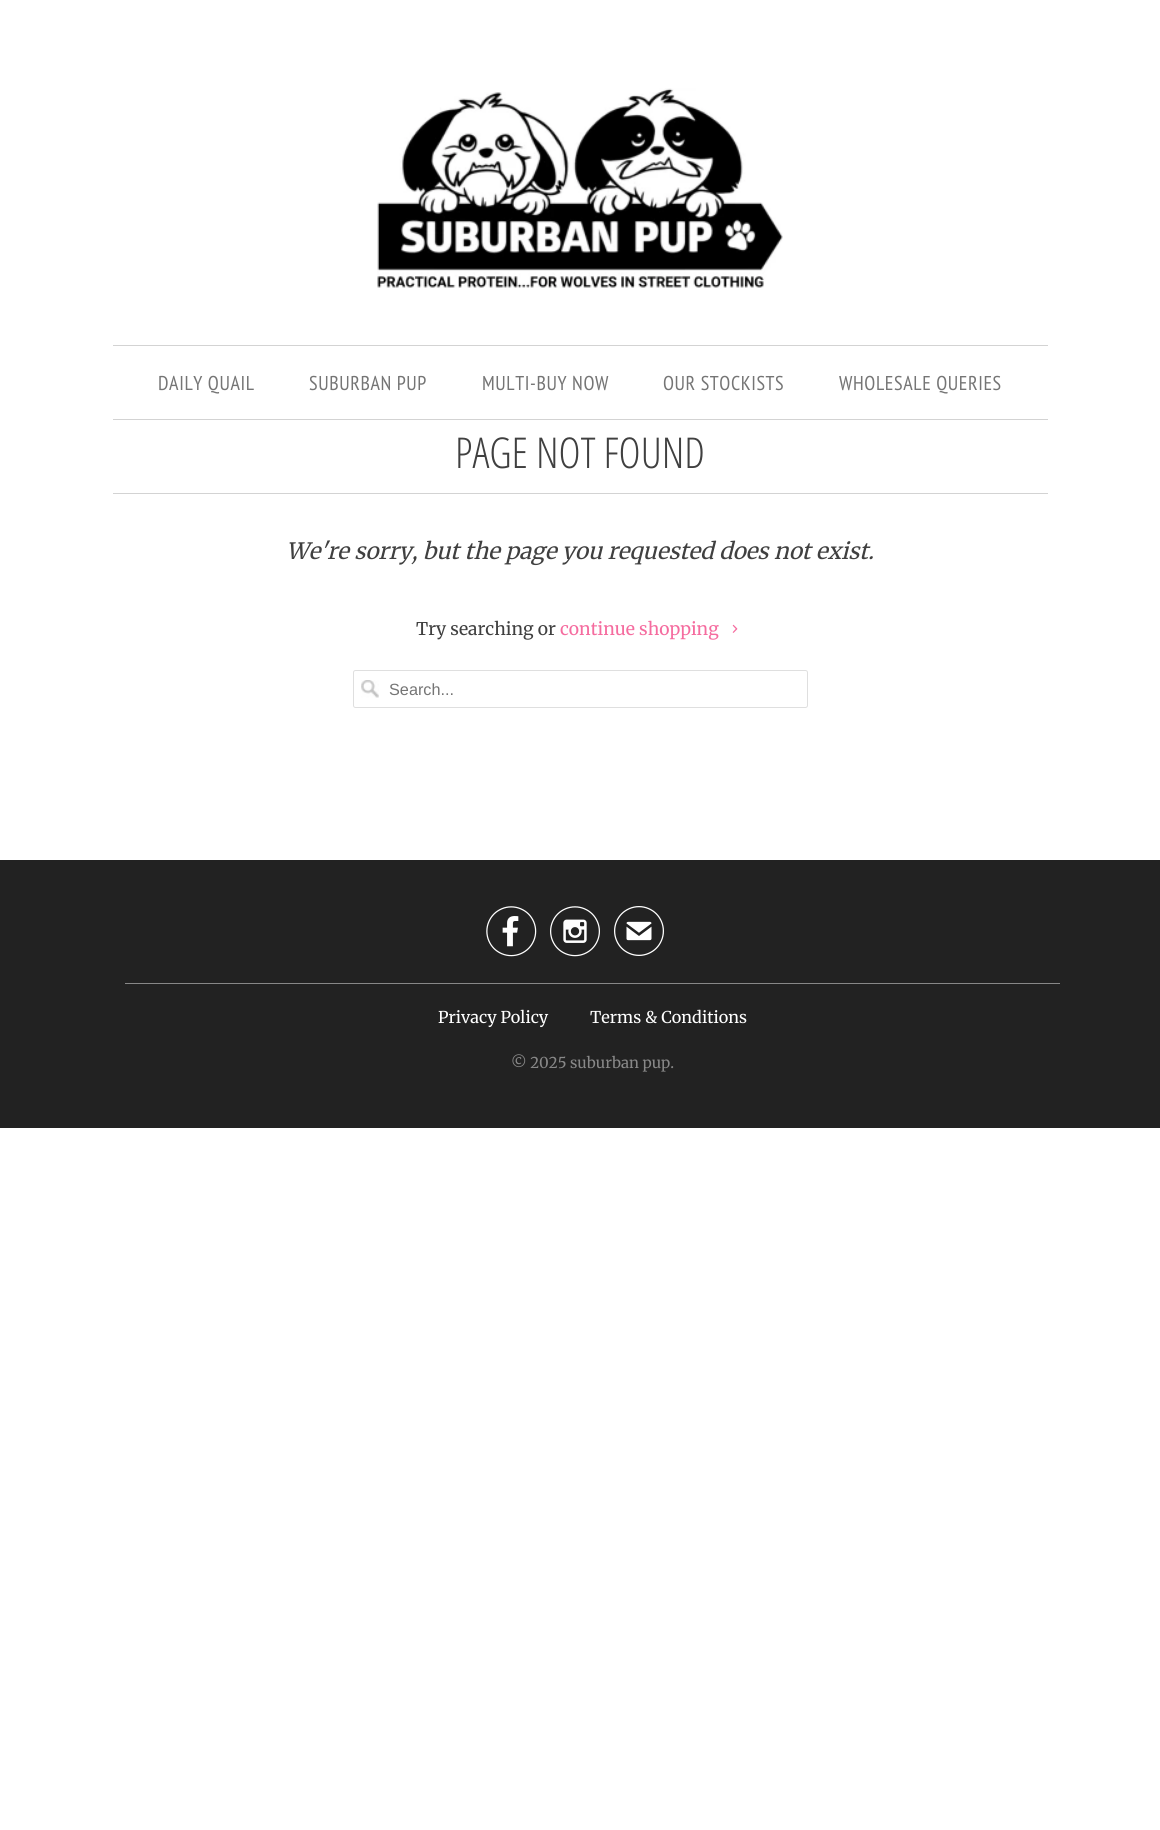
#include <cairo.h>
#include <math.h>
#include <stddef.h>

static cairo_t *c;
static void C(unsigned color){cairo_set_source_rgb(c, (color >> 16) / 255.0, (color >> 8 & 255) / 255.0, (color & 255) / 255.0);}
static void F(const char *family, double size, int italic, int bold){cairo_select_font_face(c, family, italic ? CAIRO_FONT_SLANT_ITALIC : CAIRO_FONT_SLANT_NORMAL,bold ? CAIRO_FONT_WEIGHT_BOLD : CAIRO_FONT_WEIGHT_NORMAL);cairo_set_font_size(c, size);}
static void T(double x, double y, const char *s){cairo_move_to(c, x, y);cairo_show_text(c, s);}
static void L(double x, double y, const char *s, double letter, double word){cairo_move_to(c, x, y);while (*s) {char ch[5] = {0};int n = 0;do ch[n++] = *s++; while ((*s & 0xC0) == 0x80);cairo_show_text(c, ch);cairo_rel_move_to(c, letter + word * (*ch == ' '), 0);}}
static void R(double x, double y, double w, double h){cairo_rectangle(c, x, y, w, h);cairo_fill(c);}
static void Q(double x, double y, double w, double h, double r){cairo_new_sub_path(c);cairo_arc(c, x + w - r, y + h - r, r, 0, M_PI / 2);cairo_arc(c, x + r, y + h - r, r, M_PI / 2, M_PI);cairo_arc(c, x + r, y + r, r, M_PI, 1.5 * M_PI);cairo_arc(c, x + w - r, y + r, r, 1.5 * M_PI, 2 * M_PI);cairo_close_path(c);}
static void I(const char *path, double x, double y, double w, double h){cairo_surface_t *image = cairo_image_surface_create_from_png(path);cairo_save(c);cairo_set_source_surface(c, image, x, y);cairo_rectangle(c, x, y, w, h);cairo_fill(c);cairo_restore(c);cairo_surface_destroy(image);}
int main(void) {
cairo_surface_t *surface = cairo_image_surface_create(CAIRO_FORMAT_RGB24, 1160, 1830);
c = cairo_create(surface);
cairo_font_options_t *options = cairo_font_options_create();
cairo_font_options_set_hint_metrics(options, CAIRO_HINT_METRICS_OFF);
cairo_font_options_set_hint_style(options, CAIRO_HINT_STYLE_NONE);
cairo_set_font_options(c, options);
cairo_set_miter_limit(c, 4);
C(0xffffff);
cairo_paint(c);
I("1.png",377,88,406,200);
C(0xd3d3d3);
R(113,345,935,1);
R(113,419,935,1);
F("PT Sans Narrow",20,0,0);
C(0x757575);
L(158,390,"DAILY QUAIL",.6,0);
L(309,390,"SUBURBAN PUP",.6,0);
L(482,390,"MULTI-BUY NOW",.6,0);
L(663,390,"OUR STOCKISTS",.6,0);
L(839,390,"WHOLESALE QUERIES",.6,0);
C(0xd3d3d3);
R(113,493,935,1);
F("Open Sans Condensed Light",42.5,0,0);
C(0x404040);
T(455,468,"PAGE NOT FOUND");
F("Merriweather",22.5,1,0);
T(286,559,"We're sorry, but the page you requested does not exist.");
F("Merriweather",17.5,0,0);
T(416,635,"Try searching or");
C(0xf56c9f);
T(560,635,"continue shopping");
I("2.png",732,624,6,9);
I("3.png",361,680,18,18);
Q(353.5,670.5,454,37,2);
C(0xdfdfdf);
cairo_set_line_width(c,1);
cairo_stroke(c);
F("Liberation Sans",16.25,0,0);
C(0x757575);
T(389,695,"Search...");
C(0x222222);
R(0,860,1160,268);
I("4.png",486,906,51,51);
I("5.png",550,906,50,51);
F("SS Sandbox",50,0,0);
C(0xffffff);
T(614,956,"✉");
C(0x888888);
R(125,983,935,1);
F("Merriweather",16.25,0,0);
C(0xffffff);
T(438,1023,"Privacy Policy");
T(590,1023,"Terms & Conditions");
F("Merriweather",15,0,0);
C(0x888888);
T(511,1068,"© 2025 suburban pup.");
cairo_surface_write_to_png(surface, "o.png");
cairo_font_options_destroy(options);
cairo_destroy(c);
cairo_surface_destroy(surface);
return 0;
}
